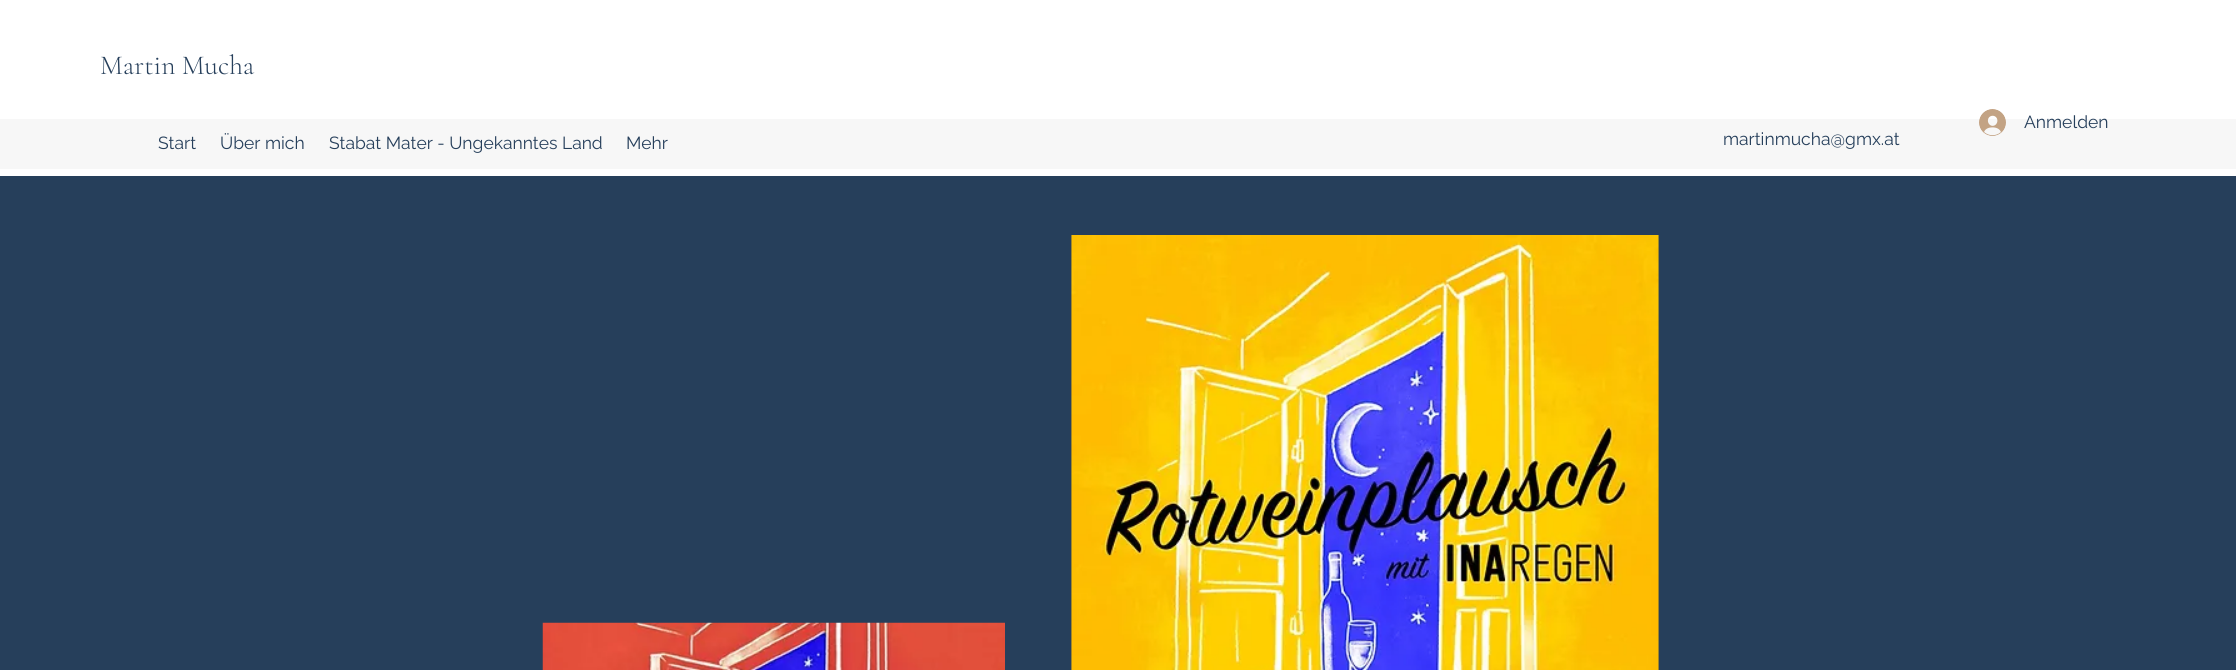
#include <cairo.h>
#include <math.h>
#include <stddef.h>

static cairo_t *c;
static void C(unsigned color){cairo_set_source_rgb(c, (color >> 16) / 255.0, (color >> 8 & 255) / 255.0, (color & 255) / 255.0);}
static void F(const char *family, double size, int italic, int bold){cairo_select_font_face(c, family, italic ? CAIRO_FONT_SLANT_ITALIC : CAIRO_FONT_SLANT_NORMAL,bold ? CAIRO_FONT_WEIGHT_BOLD : CAIRO_FONT_WEIGHT_NORMAL);cairo_set_font_size(c, size);}
static void T(double x, double y, const char *s){cairo_move_to(c, x, y);cairo_show_text(c, s);}
static void R(double x, double y, double w, double h){cairo_rectangle(c, x, y, w, h);cairo_fill(c);}
static void I(const char *path, double x, double y, double w, double h){cairo_surface_t *image = cairo_image_surface_create_from_png(path);cairo_save(c);cairo_set_source_surface(c, image, x, y);cairo_rectangle(c, x, y, w, h);cairo_fill(c);cairo_restore(c);cairo_surface_destroy(image);}
int main(void) {
cairo_surface_t *surface = cairo_image_surface_create(CAIRO_FORMAT_RGB24, 2236, 670);
c = cairo_create(surface);
cairo_font_options_t *options = cairo_font_options_create();
cairo_font_options_set_hint_metrics(options, CAIRO_HINT_METRICS_OFF);
cairo_font_options_set_hint_style(options, CAIRO_HINT_STYLE_NONE);
cairo_set_font_options(c, options);
cairo_set_miter_limit(c, 4);
C(0x263f5b);
cairo_paint(c);
C(0xffffff);
R(0,0,2236,176);
F("Cormorant Garamond Light",27.5,0,0);
C(0x263f5b);
T(100,74,"Martin Mucha");
C(0xf7f7f7);
R(0,119,2236,50);
F("Raleway",17.5,0,0);
C(0x263f5b);
T(158,149,"Start");
T(220,149,"Über mich");
T(329,149,"Stabat Mater - Ungekanntes Land");
T(626,149,"Mehr");
I("1.png",1979,109,27,27);
T(2024,128,"Anmelden");
T(1723,145,"martinmucha@gmx.at");
I("2.png",542,622,463,48);
I("3.png",1071,235,588,435);
cairo_surface_write_to_png(surface, "o.png");
cairo_font_options_destroy(options);
cairo_destroy(c);
cairo_surface_destroy(surface);
return 0;
}
